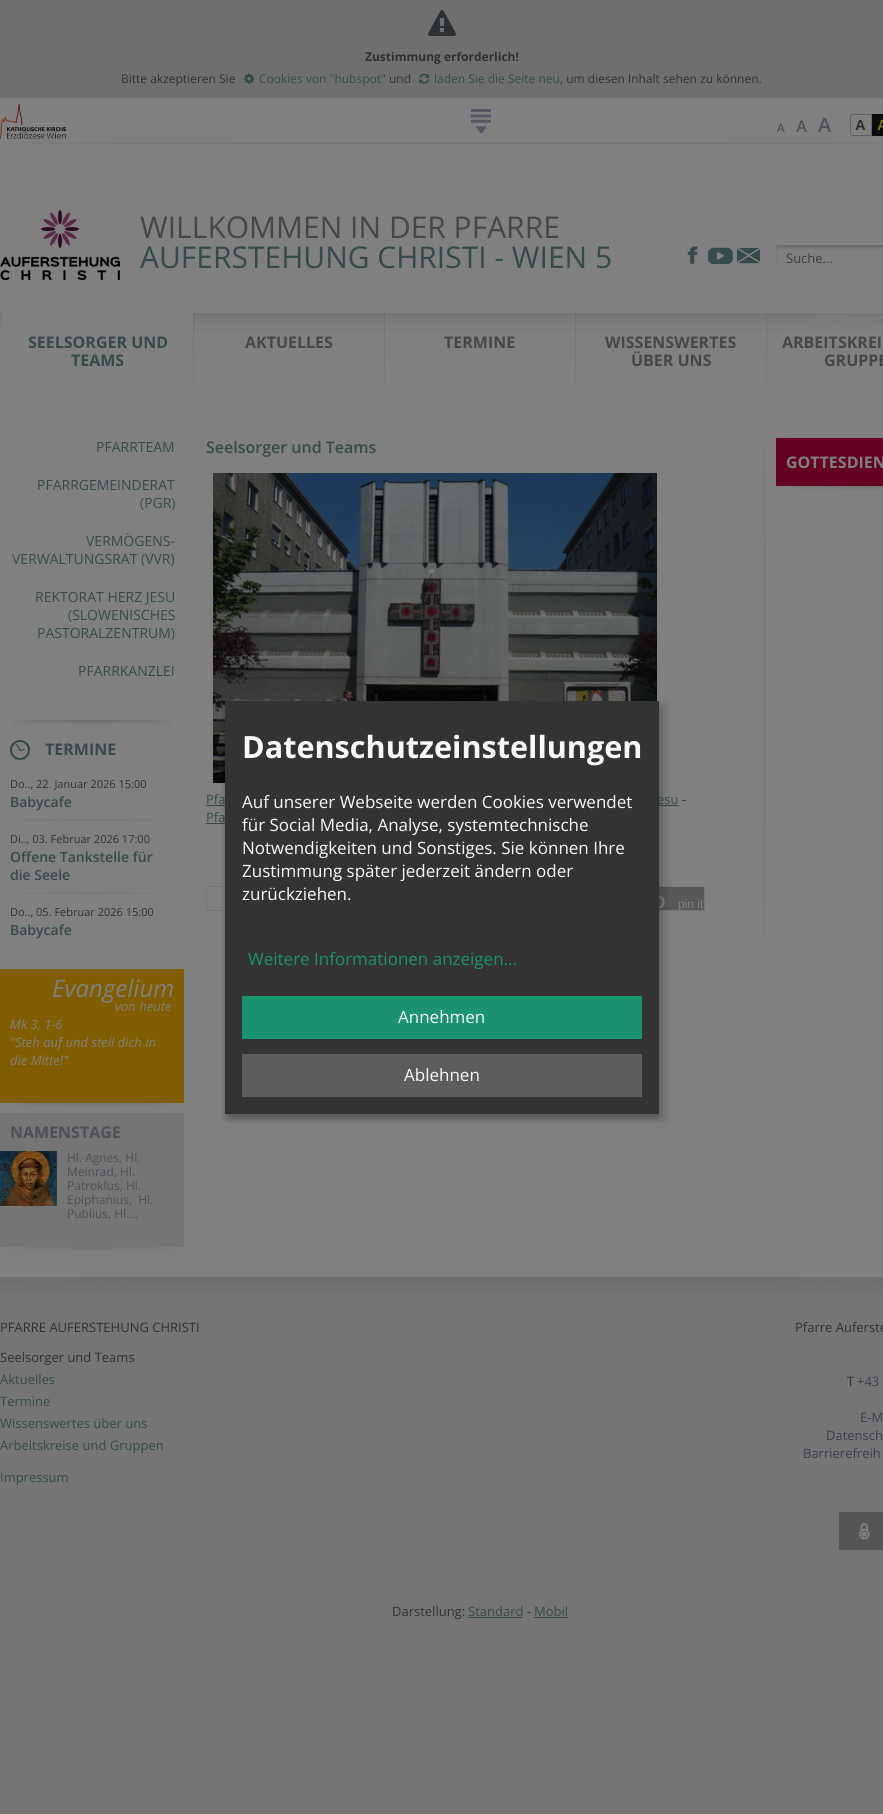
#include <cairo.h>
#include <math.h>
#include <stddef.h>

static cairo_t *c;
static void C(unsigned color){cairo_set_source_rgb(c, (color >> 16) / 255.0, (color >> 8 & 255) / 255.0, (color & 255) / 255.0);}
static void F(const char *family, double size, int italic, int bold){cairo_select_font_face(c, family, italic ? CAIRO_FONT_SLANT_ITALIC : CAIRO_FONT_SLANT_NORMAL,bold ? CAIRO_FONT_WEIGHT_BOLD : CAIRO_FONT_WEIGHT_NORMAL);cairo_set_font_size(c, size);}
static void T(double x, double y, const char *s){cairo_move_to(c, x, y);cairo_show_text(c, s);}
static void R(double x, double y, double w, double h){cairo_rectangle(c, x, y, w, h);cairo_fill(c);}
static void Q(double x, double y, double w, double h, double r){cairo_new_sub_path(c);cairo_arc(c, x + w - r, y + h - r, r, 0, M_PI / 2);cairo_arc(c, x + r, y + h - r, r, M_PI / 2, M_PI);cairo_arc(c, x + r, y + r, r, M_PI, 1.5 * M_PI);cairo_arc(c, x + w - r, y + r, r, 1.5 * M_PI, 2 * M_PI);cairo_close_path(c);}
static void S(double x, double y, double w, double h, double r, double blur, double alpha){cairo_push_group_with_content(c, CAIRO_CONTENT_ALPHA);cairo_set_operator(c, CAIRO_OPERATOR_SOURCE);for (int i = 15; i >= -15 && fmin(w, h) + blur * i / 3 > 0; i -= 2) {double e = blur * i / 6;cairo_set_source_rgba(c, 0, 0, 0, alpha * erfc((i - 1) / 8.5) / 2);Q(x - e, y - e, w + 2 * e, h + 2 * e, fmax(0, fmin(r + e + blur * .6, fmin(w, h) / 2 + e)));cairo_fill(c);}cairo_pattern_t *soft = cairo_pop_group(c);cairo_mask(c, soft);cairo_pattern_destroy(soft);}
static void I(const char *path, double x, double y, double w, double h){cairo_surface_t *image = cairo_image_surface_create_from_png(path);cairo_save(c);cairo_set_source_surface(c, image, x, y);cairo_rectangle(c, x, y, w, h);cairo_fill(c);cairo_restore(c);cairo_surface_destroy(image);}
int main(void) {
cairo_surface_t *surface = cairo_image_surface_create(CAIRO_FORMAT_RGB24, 883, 1814);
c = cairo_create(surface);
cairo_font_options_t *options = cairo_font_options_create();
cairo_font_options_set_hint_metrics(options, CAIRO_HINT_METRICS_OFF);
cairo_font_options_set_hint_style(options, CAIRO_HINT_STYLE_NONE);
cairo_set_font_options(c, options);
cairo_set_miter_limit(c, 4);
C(0x757575);
cairo_paint(c);
C(0x6f6f6f);
R(0,0,883,98);
I("1.png",428,10,28,26);
F("Open Sans",12,0,1);
C(0x2d3033);
T(365,61,"Zustimmung erforderlich!");
F("Open Sans",12,0,0);
T(121,83,"Bitte akzeptieren Sie");
I("2.png",244,73,11,11);
C(0x334a48);
T(259,83,"Cookies von \"hubspot\"");
C(0x2d3033);
T(389,83,"und");
I("3.png",419,73,11,11);
C(0x334a48);
T(434,83,"laden Sie die Seite neu");
C(0x2d3033);
T(560,83,", um diesen Inhalt sehen zu können.");
C(0x808080);
R(0,98,883,1179);
I("4.png",17,142,866,3);
I("5.png",0,104,66,35);
I("6.png",471,109,20,24);
I("7.png",776,123,9,9);
I("8.png",796,120,11,12);
I("9.png",818,117,14,15);
I("10.png",850,114,22,22);
I("11.png",872,114,11,22);
I("12.png",0,210,120,70);
F("Open Sans",30,0,0);
C(0x454647);
T(140,238,"WILLKOMMEN IN DER PFARRE");
C(0x334a48);
T(140,268,"AUFERSTEHUNG CHRISTI - WIEN 5");
I("13.png",687,246,11,18);
I("14.png",708,247,25,17);
I("15.png",737,248,23,16);
I("16.png",776,245,107,23);
F("Open Sans",13,0,0);
C(0x3b3b3b);
T(786,263,"Suche...");
I("17.png",0,313,883,18);
C(0x808080);
R(3,313,190,18);
F("Open Sans",16,0,1);
C(0x334a48);
T(28,348,"SEELSORGER UND");
T(71,366,"TEAMS");
I("18.png",193,313,1,84);
C(0x454647);
T(245,348,"AKTUELLES");
I("18.png",384,313,1,84);
T(444,348,"TERMINE");
I("18.png",575,313,1,84);
T(605,348,"WISSENSWERTES");
T(631,366,"ÜBER UNS");
I("19.png",766,313,1,84);
T(782,348,"ARBEITSKREI");
T(824,366,"GRUPPE");
F("Open Sans",14,0,0);
C(0x334a48);
T(96,452,"PFARRTEAM");
T(37,490,"PFARRGEMEINDERAT");
T(140,508,"(PGR)");
T(86,546,"VERMÖGENS-");
T(12,564,"VERWALTUNGSRAT (VVR)");
T(35,602,"REKTORAT HERZ JESU");
T(68,620,"(SLOWENISCHES");
T(37,638,"PASTORALZENTRUM)");
T(78,676,"PFARRKANZLEI");
I("20.png",12,720,160,6);
I("21.png",10,740,20,20);
F("Open Sans",16,0,1);
T(45,755,"TERMINE");
F("Open Sans",11,0,0);
C(0x2d3033);
T(10,788,"Do.., 22. Januar 2026 15:00");
F("Open Sans SemiBold",14,0,0);
C(0x334a48);
T(10,807,"Babycafe");
I("22.png",21,819,138,2);
F("Open Sans",11,0,0);
C(0x2d3033);
T(10,843,"Di.., 03. Februar 2026 17:00");
F("Open Sans SemiBold",14,0,0);
C(0x334a48);
T(10,862,"Offene Tankstelle für");
T(10,880,"die Seele");
I("22.png",21,892,138,2);
F("Open Sans",11,0,0);
C(0x2d3033);
T(10,916,"Do.., 05. Februar 2026 15:00");
F("Open Sans SemiBold",14,0,0);
C(0x334a48);
T(10,935,"Babycafe");
C(0x805d00);
R(0,969,184,134);
F("Open Sans",24,1,0);
C(0x808080);
T(52,997,"Evangelium");
F("Open Sans",13,1,0);
T(115,1011,"von heute");
T(10,1029,"Mk 3, 1-6");
T(10,1047,"\"Steh auf und stell dich in");
T(10,1065,"die Mitte!\"");
I("23.png",14,1103,156,4);
C(0x757575);
R(0,1113,184,134);
F("Open Sans",16,0,1);
C(0x4e4e57);
T(10,1138,"NAMENSTAGE");
I("24.png",0,1151,57,55);
F("Open Sans",12,0,0);
T(67,1162,"Hl. Agnes, Hl.");
T(67,1176,"Meinrad, Hl.");
T(67,1190,"Patroklus, Hl.");
T(67,1204,"Epiphanius,  Hl.");
T(67,1218,"Publius, Hl....");
I("25.png",0,1247,184,10);
I("26.png",763,553,3,383);
I("27.png",763,438,3,115);
F("Open Sans SemiBold",16,0,0);
C(0x334a48);
T(206,453,"Seelsorger und Teams");
I("28.png",213,473,444,310);
F("Open Sans",13,0,0);
T(206,804,"Pfa");
R(206,805,19,1);
T(657,804,"esu");
R(659,805,20,1);
C(0x2d3033);
T(682,804,"-");
C(0x334a48);
T(206,822,"Pfa");
R(206,823,19,1);
cairo_rectangle(c,206.5,886.5,159,24);
C(0x777777);
cairo_set_line_width(c,1);
cairo_stroke(c);
cairo_rectangle(c,545.5,886.5,159,24);
cairo_stroke(c);
C(0x585858);
R(659,887,45,23);
I("29.png",659,895,6,14);
F("Liberation Sans",12,0,0);
C(0x808080);
T(678,908,"pin it");
C(0x630024);
R(776,438,107,48);
F("Open Sans",16,0,1);
C(0x808080);
T(786,468,"GOTTESDIEN");
I("30.png",790,486,93,4);
C(0x000000);
S(230,706,434,413,0,5,.19);
S(225,705,434,413,0,3,.2);
C(0x333333);
R(225,701,434,413);
F("Open Sans",30.6,0,1);
C(0xfafafa);
T(242,758,"Datenschutzeinstellungen");
F("Open Sans",17,0,0);
T(242,808,"Auf unserer Webseite werden Cookies verwendet");
T(242,831,"für Social Media, Analyse, systemtechnische");
T(242,854,"Notwendigkeiten und Sonstiges. Sie können Ihre");
T(242,877,"Zustimmung später jederzeit ändern oder");
T(242,900,"zurückziehen.");
C(0x1a936f);
T(248,965,"Weitere Informationen anzeigen...");
R(242,996,400,43);
C(0xfafafa);
T(398,1023,"Annehmen");
C(0x5c5c5c);
R(242,1054,400,43);
C(0xfafafa);
T(404,1081,"Ablehnen");
I("31.png",0,1277,883,14);
F("Open Sans",13,0,0);
C(0x2d3033);
T(0,1332,"PFARRE AUFERSTEHUNG CHRISTI");
T(0,1362,"Seelsorger und Teams");
C(0x334a48);
T(0,1384,"Aktuelles");
T(0,1406,"Termine");
T(0,1428,"Wissenswertes über uns");
T(0,1450,"Arbeitskreise und Gruppen");
T(0,1482,"Impressum");
C(0x2d3033);
T(795,1332,"Pfarre Auferste");
T(847,1386,"T");
C(0x3c3c50);
T(857,1386,"+43");
T(860,1422,"E-M");
T(826,1440,"Datensch");
T(803,1458,"Barrierefreih");
C(0x555555);
R(839,1512,44,38);
I("32.png",859,1523,11,17);
C(0x2d3033);
T(392,1616,"Darstellung:");
C(0x334a48);
T(468,1616,"Standard");
R(468,1617,55,1);
C(0x2d3033);
T(527,1616,"-");
C(0x334a48);
T(534,1616,"Mobil");
R(534,1617,34,1);
cairo_surface_write_to_png(surface, "o.png");
cairo_font_options_destroy(options);
cairo_destroy(c);
cairo_surface_destroy(surface);
return 0;
}
